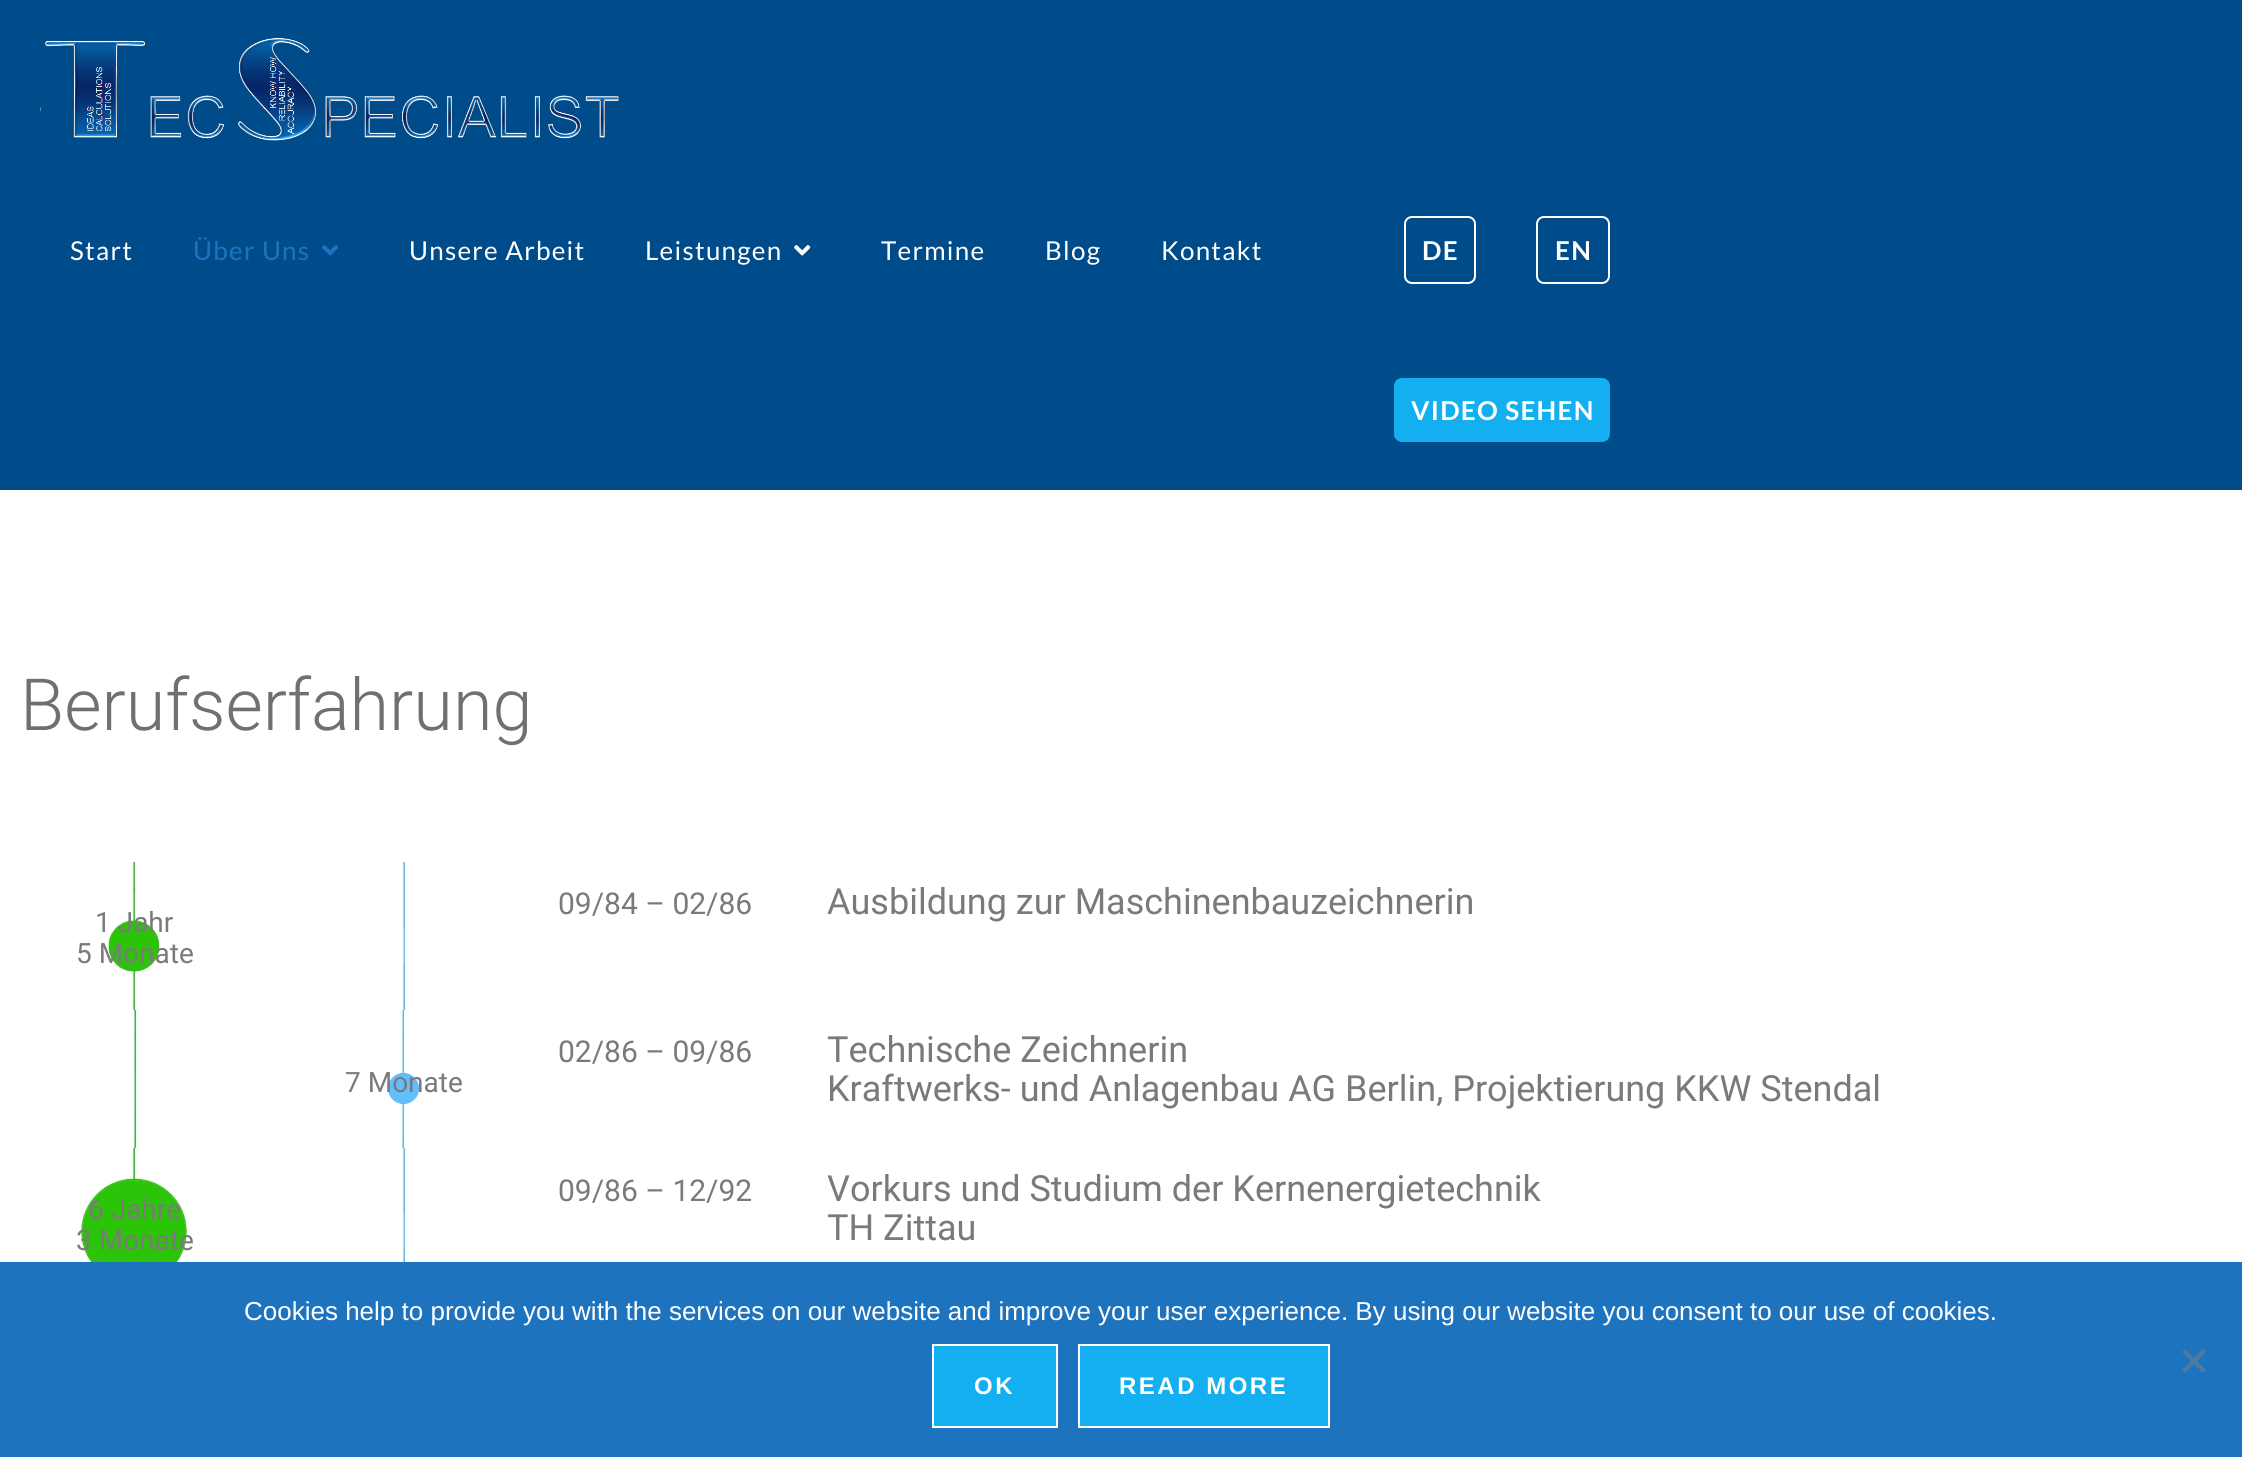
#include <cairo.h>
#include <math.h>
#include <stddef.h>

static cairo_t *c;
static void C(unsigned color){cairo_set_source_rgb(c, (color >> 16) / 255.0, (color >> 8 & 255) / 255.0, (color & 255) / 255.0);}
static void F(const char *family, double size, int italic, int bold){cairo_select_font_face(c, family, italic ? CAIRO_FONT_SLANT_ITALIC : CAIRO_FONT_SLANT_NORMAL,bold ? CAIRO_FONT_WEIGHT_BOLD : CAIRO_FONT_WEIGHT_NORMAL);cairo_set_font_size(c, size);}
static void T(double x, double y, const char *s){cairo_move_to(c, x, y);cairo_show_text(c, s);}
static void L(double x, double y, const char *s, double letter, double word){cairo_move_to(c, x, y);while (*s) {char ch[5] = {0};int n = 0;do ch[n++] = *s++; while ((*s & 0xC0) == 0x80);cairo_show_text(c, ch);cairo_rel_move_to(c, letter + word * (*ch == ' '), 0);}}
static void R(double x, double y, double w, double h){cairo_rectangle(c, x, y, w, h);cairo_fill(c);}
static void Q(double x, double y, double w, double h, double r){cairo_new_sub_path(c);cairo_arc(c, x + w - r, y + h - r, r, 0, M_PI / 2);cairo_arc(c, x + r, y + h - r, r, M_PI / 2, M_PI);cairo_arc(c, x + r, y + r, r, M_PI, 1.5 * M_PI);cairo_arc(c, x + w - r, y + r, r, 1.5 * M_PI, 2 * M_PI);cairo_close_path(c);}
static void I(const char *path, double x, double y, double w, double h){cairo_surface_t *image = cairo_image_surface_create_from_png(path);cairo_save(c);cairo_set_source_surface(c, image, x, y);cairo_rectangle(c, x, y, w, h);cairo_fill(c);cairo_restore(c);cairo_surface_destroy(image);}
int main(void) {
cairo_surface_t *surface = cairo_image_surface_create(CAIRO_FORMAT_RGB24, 2242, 1457);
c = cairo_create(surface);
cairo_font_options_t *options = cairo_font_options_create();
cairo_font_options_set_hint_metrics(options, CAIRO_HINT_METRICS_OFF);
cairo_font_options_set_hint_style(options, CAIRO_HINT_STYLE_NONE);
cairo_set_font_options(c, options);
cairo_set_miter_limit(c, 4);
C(0xffffff);
cairo_paint(c);
C(0x004b89);
R(0,0,2242,490);
I("1.png",40,37,579,104);
F("Lato",26,0,0);
C(0xffffff);
L(70,260,"Start",1.25,0);
C(0x1e73be);
L(193,260,"Über Uns",1.25,0);
I("2.png",322,245,17,11);
C(0xffffff);
L(409,260,"Unsere Arbeit",1.25,0);
L(645,260,"Leistungen",1.25,0);
I("3.png",794,245,17,11);
L(881,260,"Termine",1.25,0);
L(1045,260,"Blog",1.25,0);
L(1161,260,"Kontakt",1.25,0);
Q(1405,217,70,66,7);
cairo_stroke(c);
F("Lato",26,0,1);
L(1422,260,"DE",1.25,0);
Q(1537,217,72,66,7);
cairo_stroke(c);
L(1555,260,"EN",1.25,0);
C(0x13aff0);
Q(1394,378,216,64,8);
cairo_fill(c);
C(0xffffff);
L(1411,420,"VIDEO SEHEN",1.25,0);
F("Roboto Light",72,0,0);
C(0x707070);
T(20,730,"Berufserfahrung");
I("4.png",402,862,4,148);
F("Roboto",30,0,0);
C(0x7a7a7a);
T(558,914,"09/84 – 02/86");
F("Roboto",36,0,0);
T(827,914,"Ausbildung zur Maschinenbauzeichnerin");
I("5.png",107,862,54,168);
F("Roboto",28,0,0);
T(95,932,"1 Jahr");
T(76,963,"5 Monate");
I("6.png",132,1010,5,138);
F("Roboto",30,0,0);
T(558,1062,"02/86 – 09/86");
F("Roboto",36,0,0);
T(827,1062,"Technische Zeichnerin");
T(827,1101,"Kraftwerks- und Anlagenbau AG Berlin, Projektierung KKW Stendal");
I("7.png",387,1010,33,158);
F("Roboto",28,0,0);
T(345,1092,"7 Monate");
I("8.png",401,1148,5,114);
F("Roboto",30,0,0);
T(558,1201,"09/86 – 12/92");
F("Roboto",36,0,0);
T(827,1201,"Vorkurs und Studium der Kernenergietechnik");
T(827,1240,"TH Zittau");
I("9.png",80,1148,108,114);
F("Roboto",28,0,0);
T(88,1219,"6 Jahre");
T(76,1250,"3 Monate");
C(0x1e73be);
R(0,1262,2242,195);
F("Liberation Sans",26,0,0);
C(0xffffff);
T(244,1320,"Cookies help to provide you with the services on our website and improve your user experience. By using our website you consent to our use of cookies.");
C(0x4f7a9f);
cairo_new_path(c);
cairo_move_to(c,2203,1349);
cairo_line_to(c,2206,1352);
cairo_line_to(c,2185,1373);
cairo_line_to(c,2182,1370);
cairo_close_path(c);
cairo_fill(c);
cairo_new_path(c);
cairo_move_to(c,2182,1352);
cairo_line_to(c,2185,1349);
cairo_line_to(c,2206,1370);
cairo_line_to(c,2203,1373);
cairo_close_path(c);
cairo_fill(c);
C(0x13aff0);
cairo_rectangle(c,933,1345,124,82);
cairo_fill_preserve(c);
C(0xffffff);
cairo_stroke(c);
F("Liberation Sans",24,0,1);
L(974,1394,"OK",2.5,0);
C(0x13aff0);
cairo_rectangle(c,1079,1345,250,82);
cairo_fill_preserve(c);
C(0xffffff);
cairo_stroke(c);
L(1119,1394,"READ MORE",2.5,0);
cairo_surface_write_to_png(surface, "o.png");
cairo_font_options_destroy(options);
cairo_destroy(c);
cairo_surface_destroy(surface);
return 0;
}
